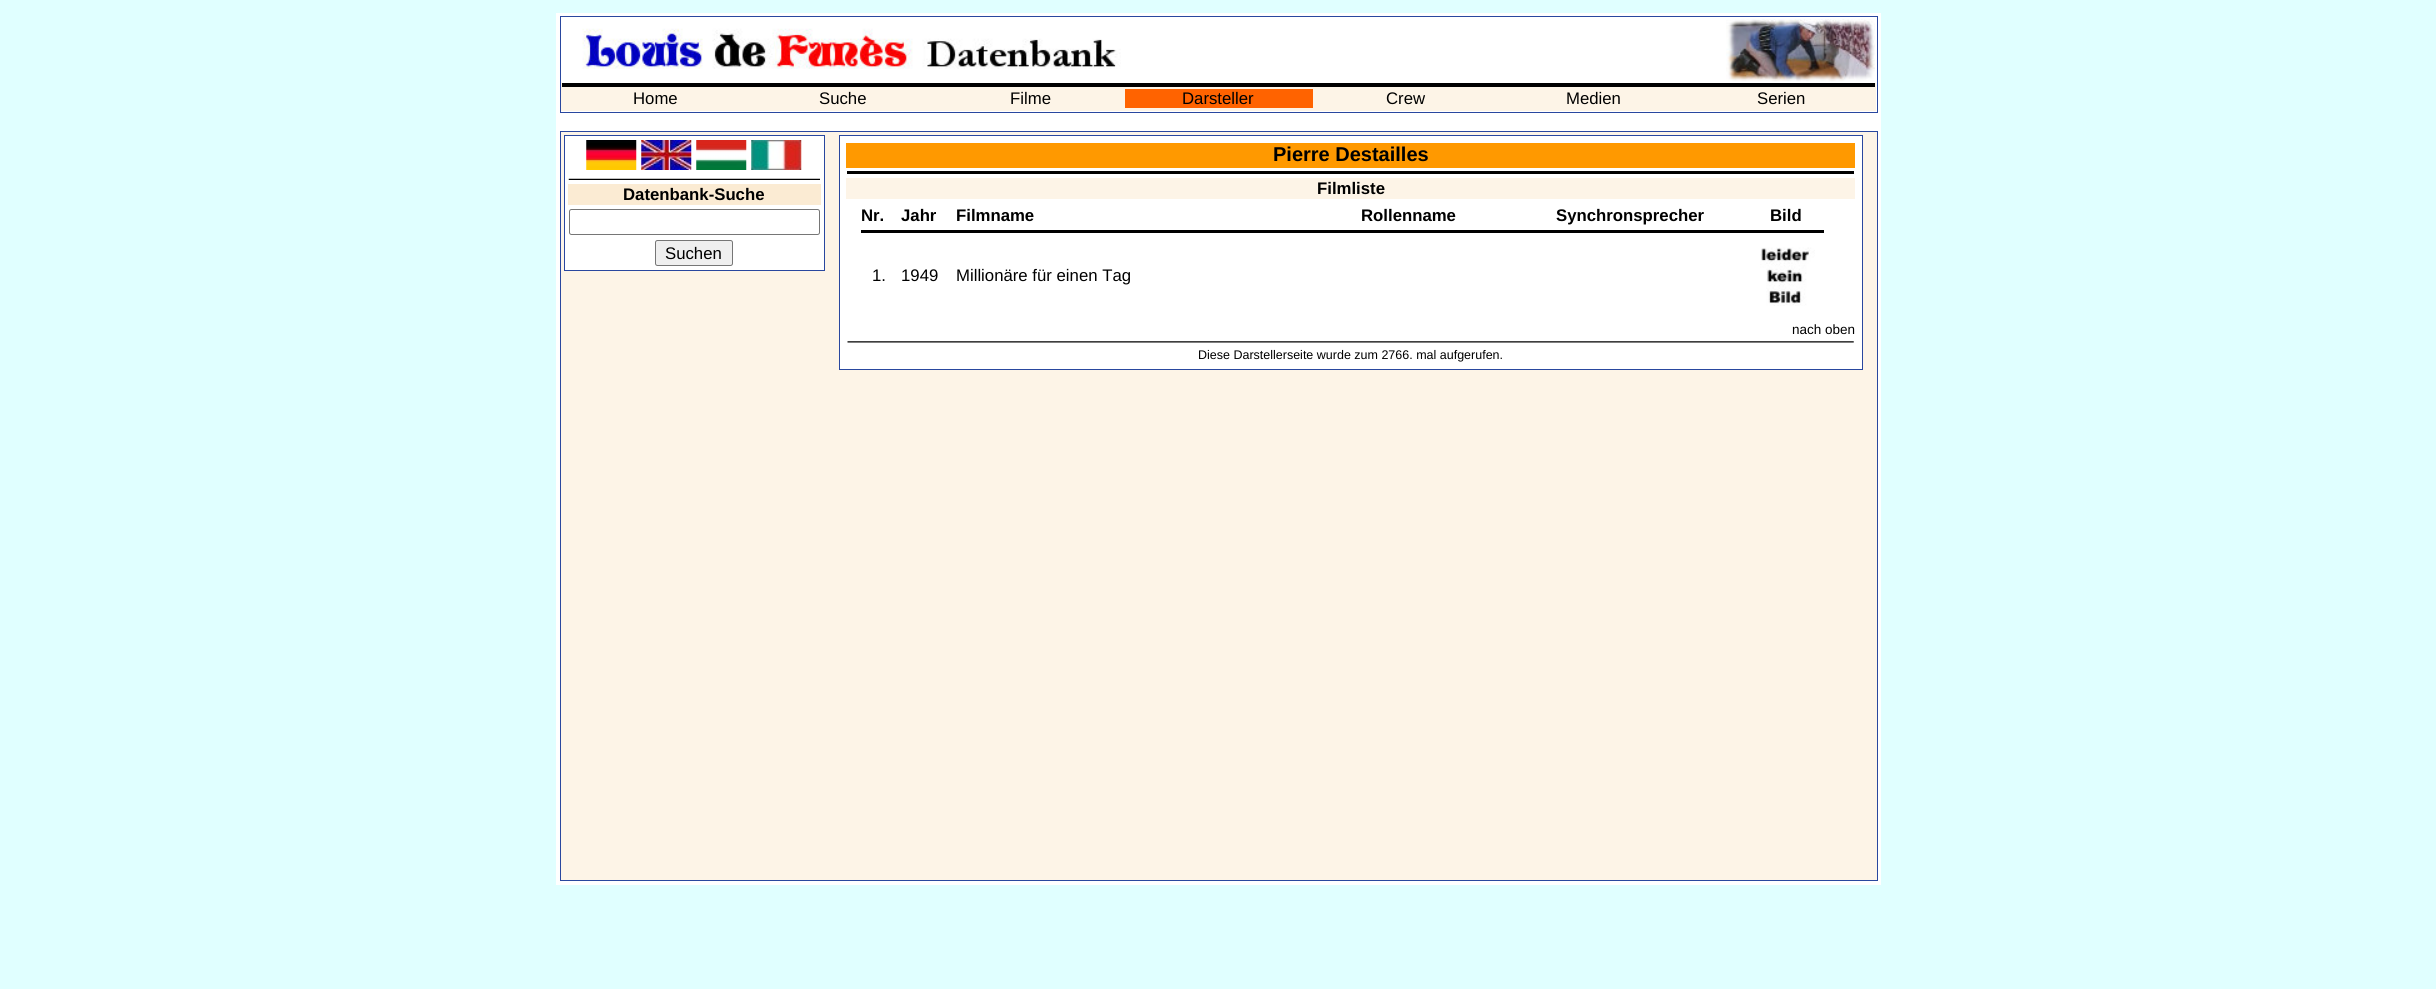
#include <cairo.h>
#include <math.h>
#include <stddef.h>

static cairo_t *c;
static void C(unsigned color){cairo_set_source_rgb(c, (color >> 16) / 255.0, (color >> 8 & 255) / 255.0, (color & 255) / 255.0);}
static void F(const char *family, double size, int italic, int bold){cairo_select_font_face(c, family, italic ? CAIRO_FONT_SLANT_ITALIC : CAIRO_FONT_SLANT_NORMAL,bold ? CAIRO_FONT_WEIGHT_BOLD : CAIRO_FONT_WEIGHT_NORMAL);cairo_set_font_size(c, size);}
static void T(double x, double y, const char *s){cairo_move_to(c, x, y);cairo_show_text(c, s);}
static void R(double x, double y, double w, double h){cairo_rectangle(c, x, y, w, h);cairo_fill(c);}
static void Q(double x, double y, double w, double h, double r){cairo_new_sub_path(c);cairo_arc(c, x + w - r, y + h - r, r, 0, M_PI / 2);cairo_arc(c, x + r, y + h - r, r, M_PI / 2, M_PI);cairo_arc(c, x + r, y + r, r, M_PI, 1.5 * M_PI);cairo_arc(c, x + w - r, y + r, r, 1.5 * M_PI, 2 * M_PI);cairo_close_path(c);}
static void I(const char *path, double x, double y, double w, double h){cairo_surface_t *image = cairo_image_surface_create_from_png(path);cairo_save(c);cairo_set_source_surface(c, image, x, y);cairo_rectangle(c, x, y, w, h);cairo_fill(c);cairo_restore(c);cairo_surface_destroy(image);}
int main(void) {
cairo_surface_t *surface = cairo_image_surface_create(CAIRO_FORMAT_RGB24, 2436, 989);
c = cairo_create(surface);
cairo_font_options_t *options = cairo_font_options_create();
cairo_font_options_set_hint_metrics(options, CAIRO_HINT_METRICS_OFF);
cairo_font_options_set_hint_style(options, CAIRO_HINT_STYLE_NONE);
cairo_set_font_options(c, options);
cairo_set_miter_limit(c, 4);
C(0xe0ffff);
cairo_paint(c);
C(0xffffff);
R(556,13,1325,872);
cairo_rectangle(c,560.5,16.5,1317,96);
C(0x29479f);
cairo_set_line_width(c,1);
cairo_stroke(c);
I("1.png",582,28,539,41);
I("2.png",1726,19,149,63);
C(0xfdf4e7);
R(561,83,1315,28);
C(0x000000);
R(562,83,1313,4);
F("Liberation Sans",16.75,0,0);
T(633,104,"Home");
T(819,104,"Suche");
T(1010,104,"Filme");
C(0xff6300);
R(1125,89,188,19);
C(0x000000);
T(1182,104,"Darsteller");
T(1386,104,"Crew");
T(1566,104,"Medien");
T(1757,104,"Serien");
C(0xfdf4e7);
cairo_rectangle(c,560.5,131.5,1317,749);
cairo_fill_preserve(c);
C(0x29479f);
cairo_stroke(c);
C(0xffffff);
cairo_rectangle(c,564.5,135.5,260,135);
cairo_fill_preserve(c);
C(0x29479f);
cairo_stroke(c);
I("3.png",586,140,51,30);
I("4.png",641,140,51,30);
I("5.png",696,140,51,30);
I("6.png",751,140,51,30);
I("7.png",568,178,252,2);
C(0xfbebd3);
R(568,184,253,21);
F("Liberation Sans",16.75,0,1);
C(0x000000);
T(623,200,"Datenbank-Suche");
Q(569.5,209.5,250,25,2);
C(0x767676);
cairo_stroke(c);
C(0xefefef);
Q(655.5,240.5,77,25,2);
cairo_fill_preserve(c);
C(0x767676);
cairo_stroke(c);
F("Liberation Sans",16.75,0,0);
C(0x000000);
T(665,259,"Suchen");
C(0xffffff);
cairo_rectangle(c,839.5,135.5,1023,234);
cairo_fill_preserve(c);
C(0x29479f);
cairo_stroke(c);
C(0xff9900);
R(846,143,1009,25);
F("Liberation Sans",20,0,1);
C(0x000000);
T(1273,161,"Pierre Destailles");
R(847,171,1007,3);
C(0xfdf4e7);
R(846,178,1009,21);
F("Liberation Sans",16.75,0,1);
C(0x000000);
T(1317,194,"Filmliste");
T(861,221,"Nr.");
T(901,221,"Jahr");
T(956,221,"Filmname");
T(1361,221,"Rollenname");
T(1556,221,"Synchronsprecher");
T(1770,221,"Bild");
R(861,230,963,3);
F("Liberation Sans",16.75,0,0);
T(872,281,"1.");
T(901,281,"1949");
T(956,281,"Millionäre für einen Tag");
I("8.png",1760,247,55,59);
F("Liberation Sans",13.5,0,0);
T(1792,334,"nach oben");
I("9.png",847,341,1007,2);
F("Liberation Sans",12.5,0,0);
T(1198,359,"Diese Darstellerseite wurde zum 2766. mal aufgerufen.");
cairo_surface_write_to_png(surface, "o.png");
cairo_font_options_destroy(options);
cairo_destroy(c);
cairo_surface_destroy(surface);
return 0;
}
